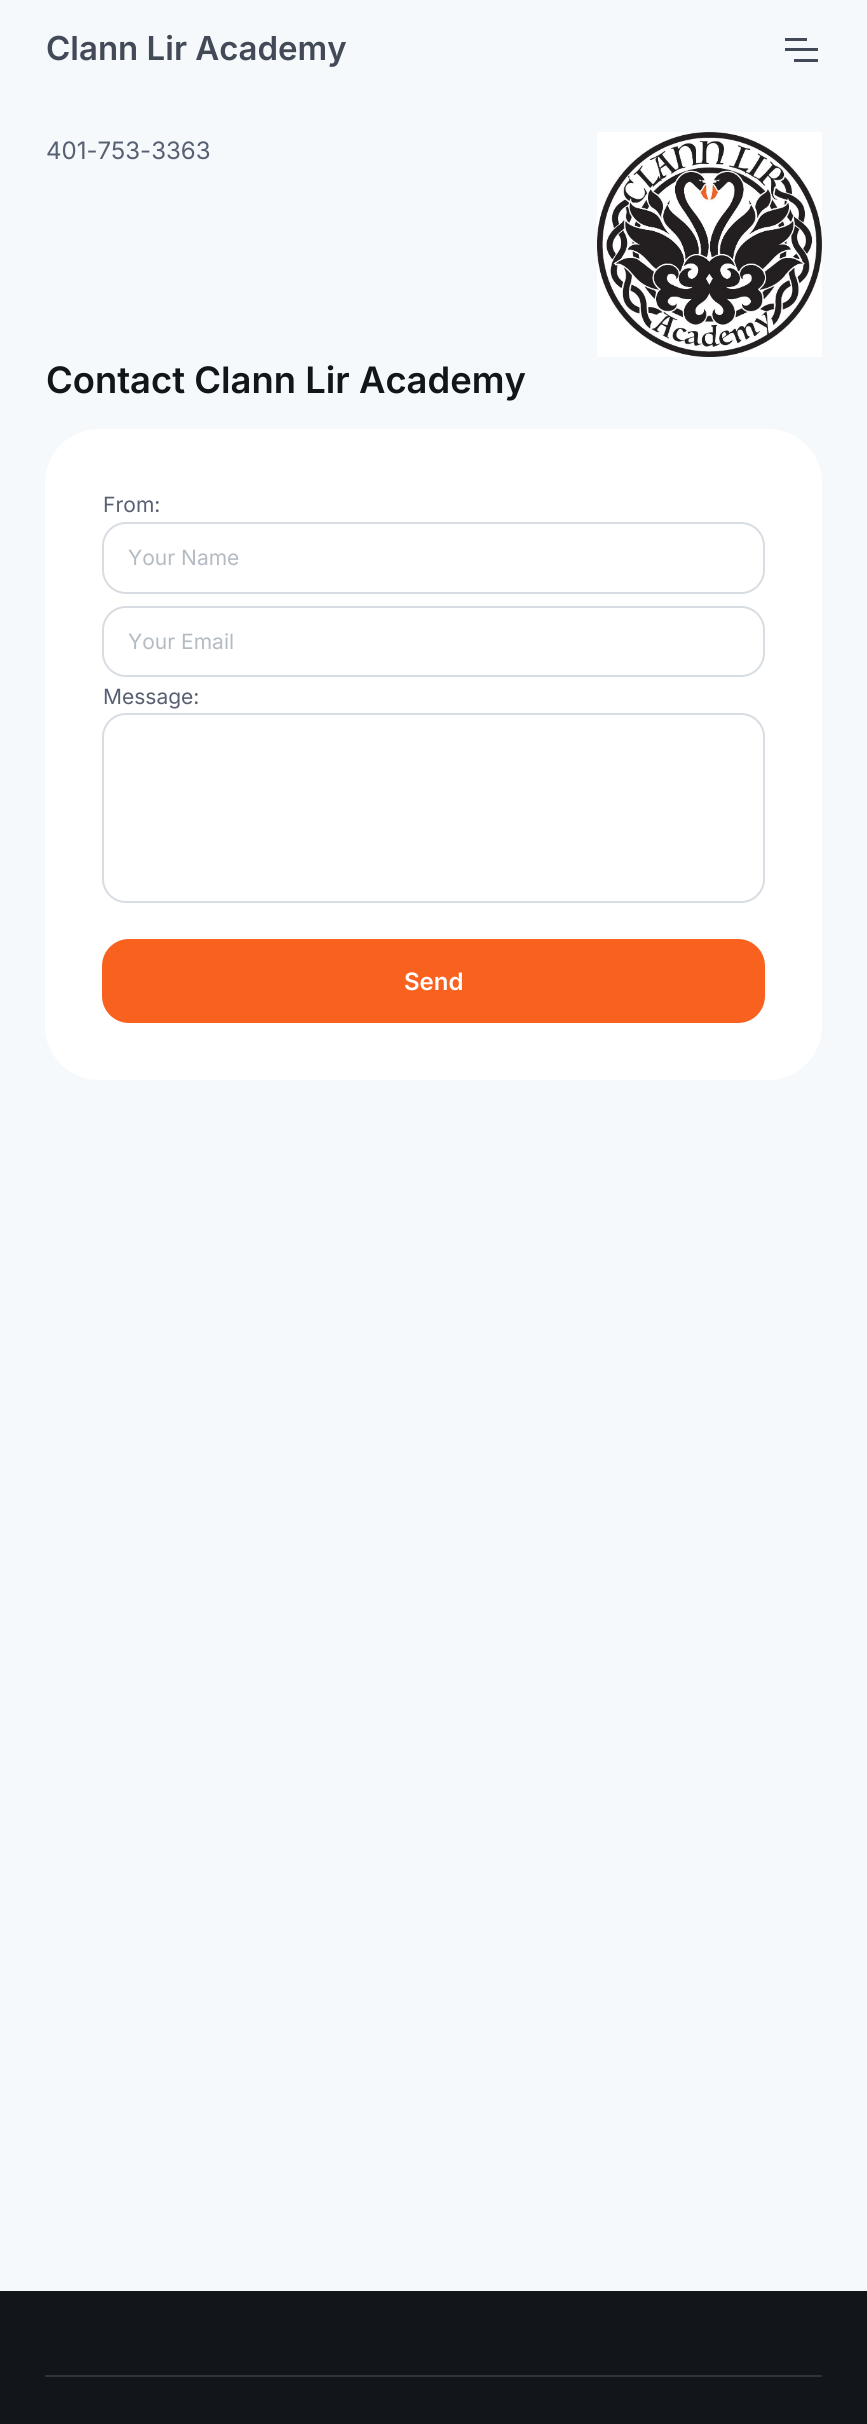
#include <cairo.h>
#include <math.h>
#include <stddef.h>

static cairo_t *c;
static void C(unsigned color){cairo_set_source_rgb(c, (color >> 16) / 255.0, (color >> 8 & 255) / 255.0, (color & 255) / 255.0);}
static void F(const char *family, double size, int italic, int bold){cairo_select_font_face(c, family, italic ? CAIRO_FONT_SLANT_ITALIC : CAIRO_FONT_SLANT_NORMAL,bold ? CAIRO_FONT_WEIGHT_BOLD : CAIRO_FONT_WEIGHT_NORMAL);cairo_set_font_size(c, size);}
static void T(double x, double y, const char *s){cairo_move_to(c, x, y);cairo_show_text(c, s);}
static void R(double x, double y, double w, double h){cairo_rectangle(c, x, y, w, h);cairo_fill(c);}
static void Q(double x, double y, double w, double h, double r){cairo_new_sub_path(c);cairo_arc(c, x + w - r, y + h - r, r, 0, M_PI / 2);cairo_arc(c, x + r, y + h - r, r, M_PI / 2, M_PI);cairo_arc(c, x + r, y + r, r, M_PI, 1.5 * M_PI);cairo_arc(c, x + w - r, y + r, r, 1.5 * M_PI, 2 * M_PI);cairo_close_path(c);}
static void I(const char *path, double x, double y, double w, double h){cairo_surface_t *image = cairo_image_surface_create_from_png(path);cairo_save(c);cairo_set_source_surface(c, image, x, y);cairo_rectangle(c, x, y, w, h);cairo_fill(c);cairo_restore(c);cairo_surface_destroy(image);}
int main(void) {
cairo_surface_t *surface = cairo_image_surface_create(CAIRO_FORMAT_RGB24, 867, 2424);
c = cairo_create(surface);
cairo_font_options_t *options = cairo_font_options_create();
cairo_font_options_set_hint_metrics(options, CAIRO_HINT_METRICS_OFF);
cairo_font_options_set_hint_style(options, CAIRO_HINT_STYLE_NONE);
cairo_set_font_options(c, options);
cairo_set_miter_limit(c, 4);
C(0xf6f9fc);
cairo_paint(c);
F("Inter SemiBold",33,0,0);
C(0x434a57);
T(46,60,"Clann Lir Academy");
R(785,48,33,3);
R(785,38,22,3);
R(794,59,24,3);
F("Inter",24,0,0);
C(0x576071);
T(46,159,"401-753-3363");
I("1.png",597,132,225,225);
F("Inter SemiBold",36.4,0,0);
C(0x121519);
T(46,393,"Contact Clann Lir Academy");
C(0xffffff);
Q(45,429,777,651,54);
cairo_fill(c);
F("Inter",21,0,0);
C(0x576071);
T(103,512,"From:");
Q(103,523,661,70,23);
C(0xd7dde2);
cairo_stroke(c);
C(0xb4bbc3);
T(128,565,"Your Name");
Q(103,607,661,69,23);
C(0xd7dde2);
cairo_stroke(c);
C(0xb4bbc3);
T(128,649,"Your Email");
C(0x576071);
T(103,704,"Message:");
Q(103,714,661,188,23);
C(0xd7dde2);
cairo_stroke(c);
C(0xf9611f);
Q(103,940,661,82,26);
cairo_fill_preserve(c);
cairo_stroke(c);
F("Inter SemiBold",24,0,0);
C(0xffffff);
T(404,990,"Send");
C(0x121519);
R(0,2291,867,133);
C(0x313337);
R(45,2375,777,2);
cairo_surface_write_to_png(surface, "o.png");
cairo_font_options_destroy(options);
cairo_destroy(c);
cairo_surface_destroy(surface);
return 0;
}
